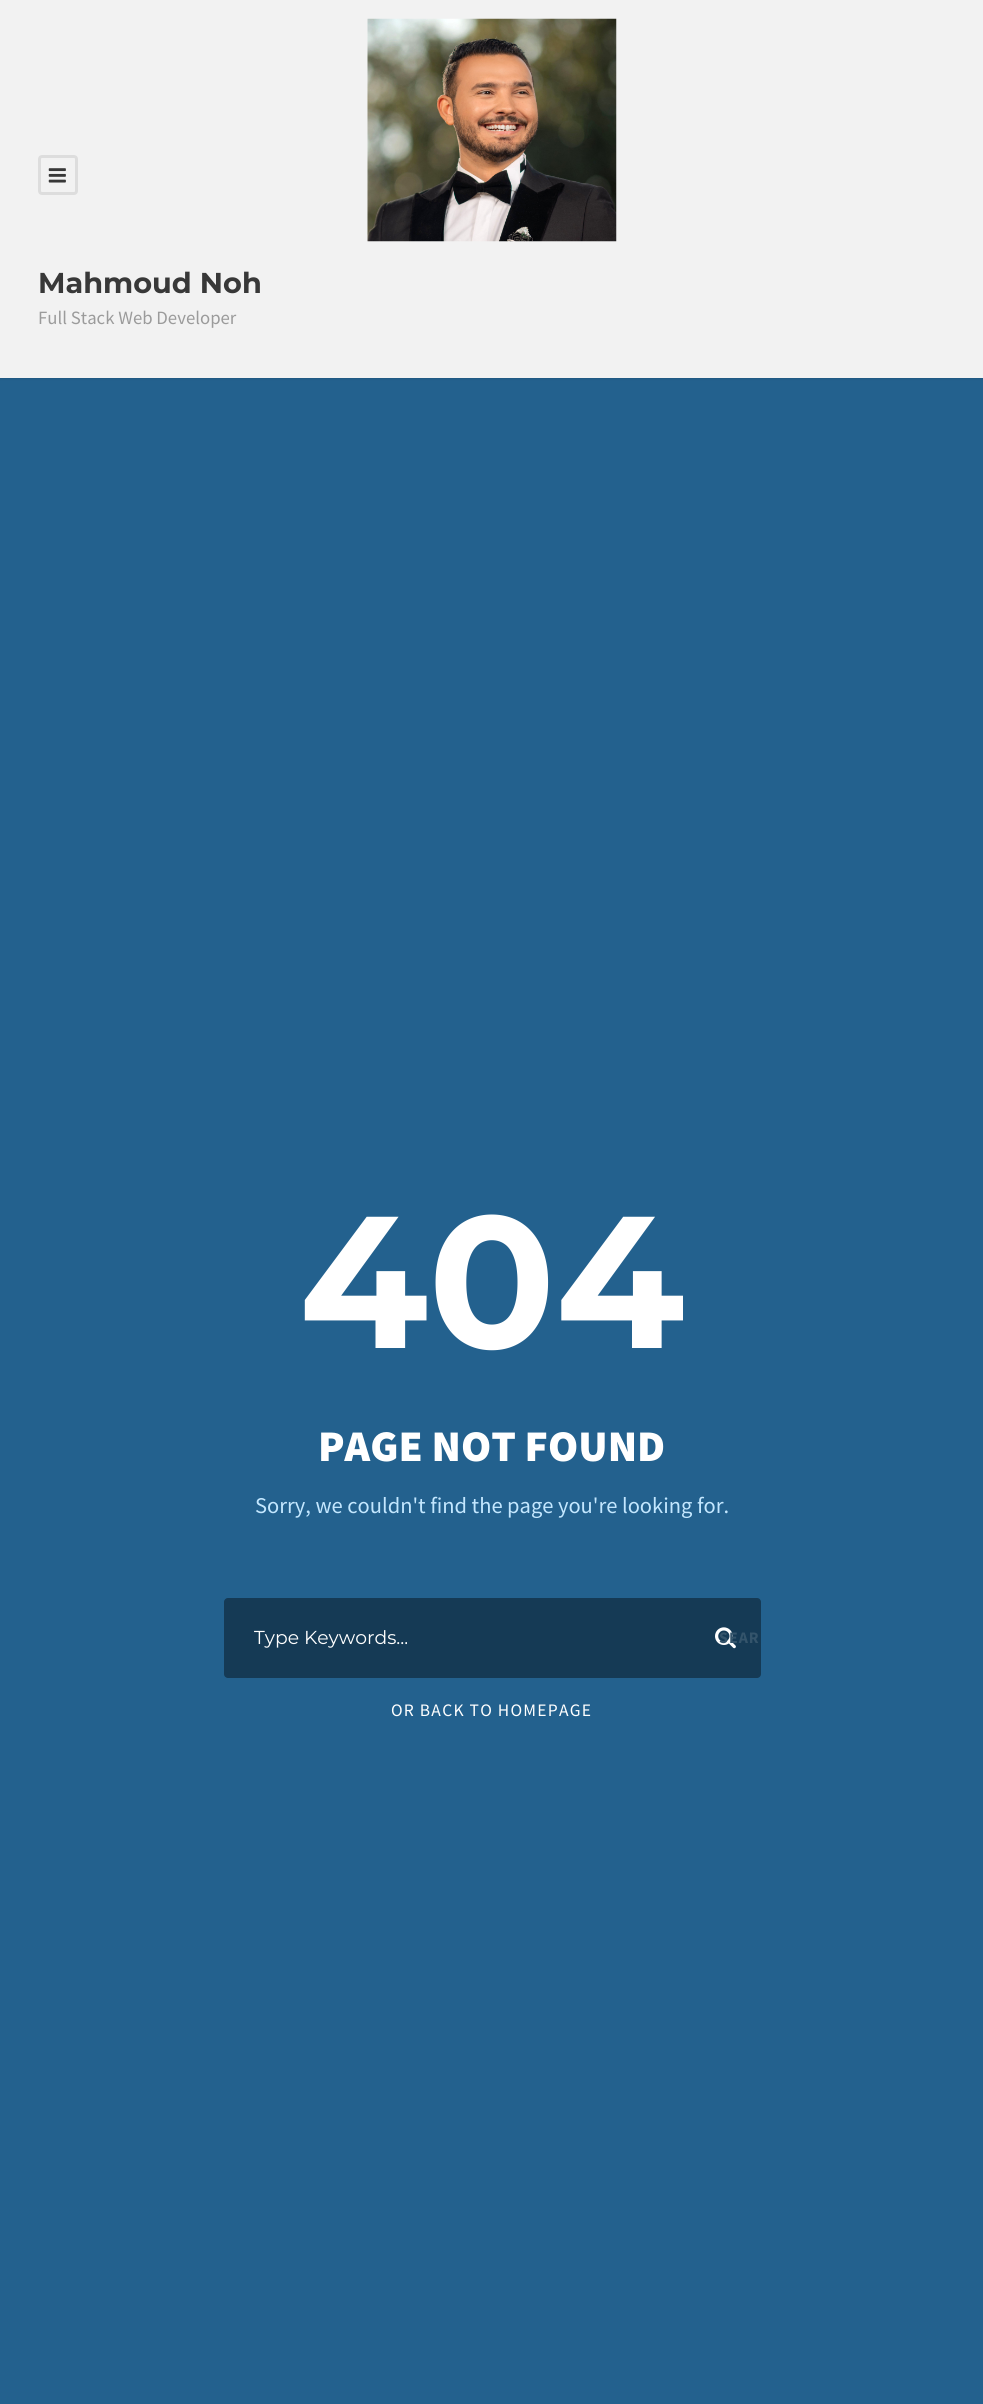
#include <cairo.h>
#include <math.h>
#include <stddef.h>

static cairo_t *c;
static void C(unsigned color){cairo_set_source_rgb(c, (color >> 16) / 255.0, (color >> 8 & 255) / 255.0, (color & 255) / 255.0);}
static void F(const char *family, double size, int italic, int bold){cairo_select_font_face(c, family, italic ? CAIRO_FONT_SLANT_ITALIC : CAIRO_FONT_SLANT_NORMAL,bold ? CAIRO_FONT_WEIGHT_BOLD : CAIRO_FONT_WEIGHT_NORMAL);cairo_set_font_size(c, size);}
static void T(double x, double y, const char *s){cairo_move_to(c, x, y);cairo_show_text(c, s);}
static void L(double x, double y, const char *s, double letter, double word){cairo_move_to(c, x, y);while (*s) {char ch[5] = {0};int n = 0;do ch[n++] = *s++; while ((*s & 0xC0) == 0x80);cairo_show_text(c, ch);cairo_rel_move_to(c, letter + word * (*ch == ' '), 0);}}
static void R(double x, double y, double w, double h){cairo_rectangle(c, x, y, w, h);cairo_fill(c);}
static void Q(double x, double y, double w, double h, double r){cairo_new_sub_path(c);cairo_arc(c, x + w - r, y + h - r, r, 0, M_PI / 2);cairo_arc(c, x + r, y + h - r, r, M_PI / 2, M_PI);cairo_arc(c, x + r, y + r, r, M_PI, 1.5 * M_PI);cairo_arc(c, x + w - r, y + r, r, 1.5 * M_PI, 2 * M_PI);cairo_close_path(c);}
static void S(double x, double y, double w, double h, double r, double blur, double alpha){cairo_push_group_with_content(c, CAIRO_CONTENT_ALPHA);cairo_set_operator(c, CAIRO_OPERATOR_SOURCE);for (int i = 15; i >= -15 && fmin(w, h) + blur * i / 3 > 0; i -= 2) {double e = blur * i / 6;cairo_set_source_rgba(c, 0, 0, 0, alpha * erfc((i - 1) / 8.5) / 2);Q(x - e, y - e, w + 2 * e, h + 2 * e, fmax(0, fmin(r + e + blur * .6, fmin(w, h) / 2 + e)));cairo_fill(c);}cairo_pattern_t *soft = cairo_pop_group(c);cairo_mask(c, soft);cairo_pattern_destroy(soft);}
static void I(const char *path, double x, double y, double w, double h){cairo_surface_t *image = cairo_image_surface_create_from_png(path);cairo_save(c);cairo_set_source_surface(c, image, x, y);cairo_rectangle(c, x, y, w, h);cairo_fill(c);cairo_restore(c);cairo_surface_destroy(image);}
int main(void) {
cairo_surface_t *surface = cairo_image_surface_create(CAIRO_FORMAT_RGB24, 983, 2404);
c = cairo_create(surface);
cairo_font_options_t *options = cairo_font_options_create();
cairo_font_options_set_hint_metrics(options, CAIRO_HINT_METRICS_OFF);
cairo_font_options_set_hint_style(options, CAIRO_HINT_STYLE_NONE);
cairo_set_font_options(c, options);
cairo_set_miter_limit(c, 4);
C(0x23618e);
cairo_paint(c);
C(0x000000);
S(0,1,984,378,0,1,.1);
C(0xf2f2f2);
R(0,0,983,378);
Q(39.5,156.5,37,37,2.5);
C(0xdddddd);
cairo_set_line_width(c,3);
cairo_stroke(c);
I("1.png",48,168,18,15);
I("2.png",367,18,250,224);
F("Montserrat",28.75,0,1);
C(0x383838);
T(38,293,"Mahmoud Noh");
F("Source Sans Pro",18.75,0,0);
C(0x9b9b9b);
T(38,324,"Full Stack Web Developer");
F("Montserrat",187.5,0,1);
C(0xffffff);
T(299,1348,"404");
F("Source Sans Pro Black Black",43.75,0,0);
T(318,1461,"PAGE NOT FOUND");
F("Source Sans Pro",22.5,0,0);
C(0xc3e7ff);
T(255,1513,"Sorry, we couldn't find the page you're looking for.");
C(0x153a55);
Q(224,1598,537,80,4);
cairo_fill(c);
F("Montserrat",18.75,0,0);
C(0xffffff);
T(254,1644,"Type Keywords...");
I("3.png",715,1627,21,22);
F("Source Sans Pro",16,0,1);
C(0x34546b);
L(719,1643,"SEAR",1,0);
F("Source Sans Pro",17.5,0,0);
C(0xffffff);
L(391,1716,"OR BACK TO HOMEPAGE",1.25,0);
cairo_surface_write_to_png(surface, "o.png");
cairo_font_options_destroy(options);
cairo_destroy(c);
cairo_surface_destroy(surface);
return 0;
}
